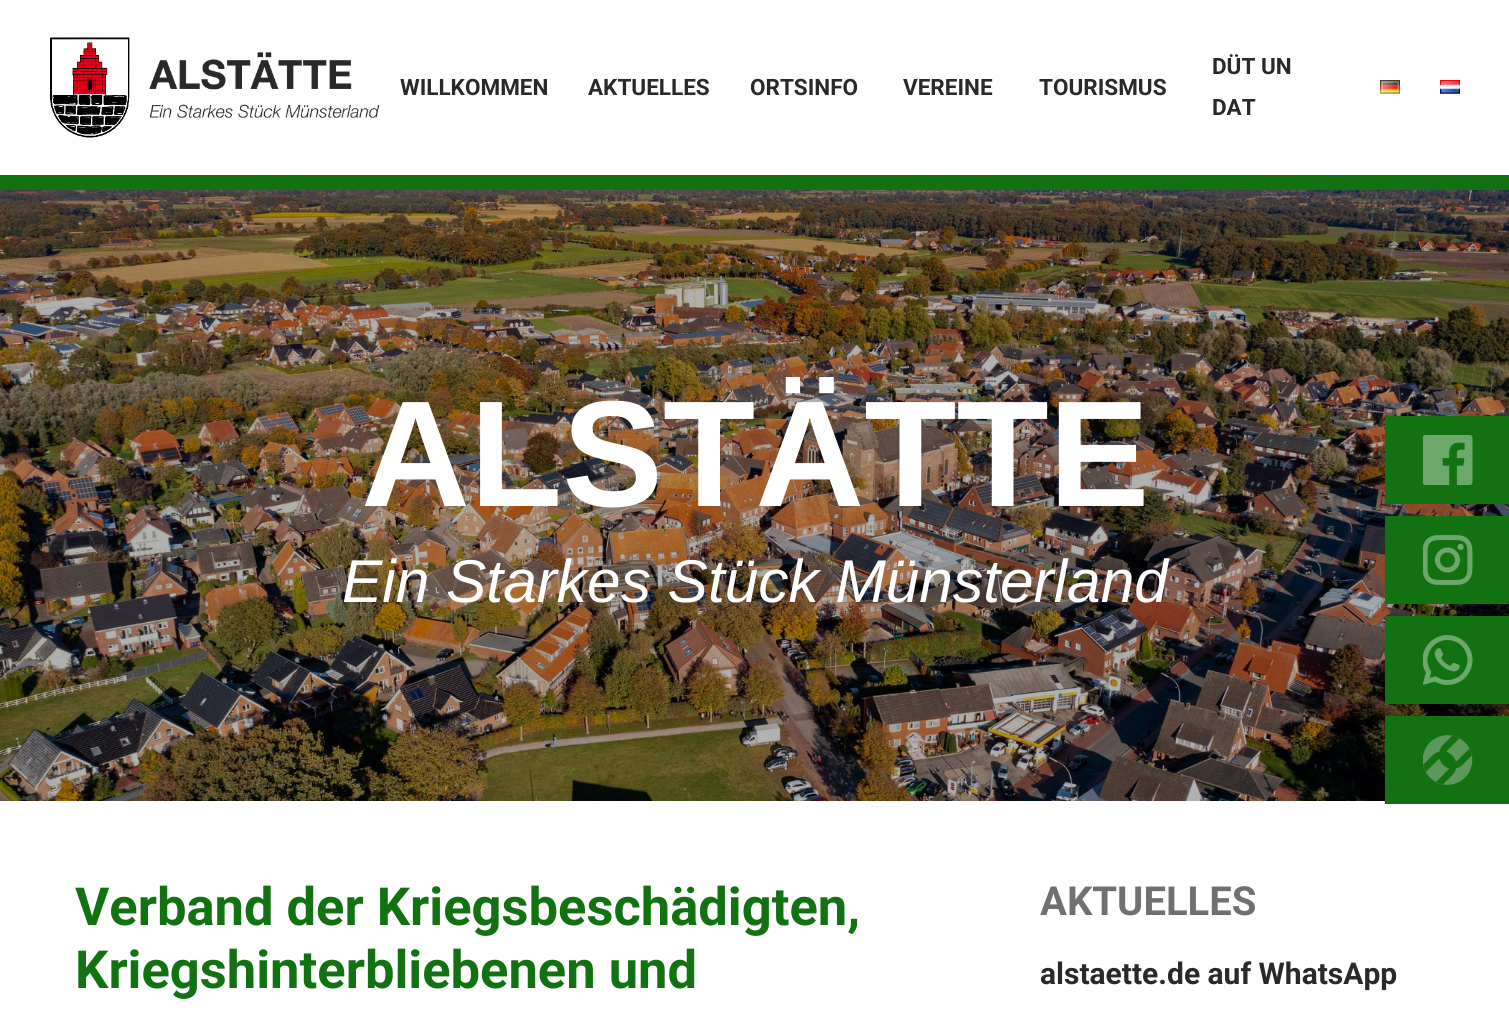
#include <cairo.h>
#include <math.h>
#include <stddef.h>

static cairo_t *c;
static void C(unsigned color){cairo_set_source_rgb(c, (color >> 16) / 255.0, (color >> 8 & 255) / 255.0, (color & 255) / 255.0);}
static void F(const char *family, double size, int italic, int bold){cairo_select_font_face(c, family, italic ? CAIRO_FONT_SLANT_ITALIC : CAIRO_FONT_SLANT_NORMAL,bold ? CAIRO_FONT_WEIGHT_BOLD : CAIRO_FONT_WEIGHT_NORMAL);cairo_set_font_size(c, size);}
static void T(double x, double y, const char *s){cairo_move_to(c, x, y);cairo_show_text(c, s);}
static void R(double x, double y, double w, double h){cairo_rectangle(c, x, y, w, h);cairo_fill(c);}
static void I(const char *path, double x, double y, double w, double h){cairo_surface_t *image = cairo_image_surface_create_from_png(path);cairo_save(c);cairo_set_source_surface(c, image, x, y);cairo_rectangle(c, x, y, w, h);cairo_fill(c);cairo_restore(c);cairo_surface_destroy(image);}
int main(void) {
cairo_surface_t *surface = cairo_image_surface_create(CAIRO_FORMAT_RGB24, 1509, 1020);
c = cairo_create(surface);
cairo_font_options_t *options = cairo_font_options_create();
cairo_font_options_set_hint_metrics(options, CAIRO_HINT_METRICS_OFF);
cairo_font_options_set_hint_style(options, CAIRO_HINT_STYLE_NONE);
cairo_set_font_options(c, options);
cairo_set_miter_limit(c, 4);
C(0xffffff);
cairo_paint(c);
C(0x127212);
R(0,175,1509,15);
I("1.png",50,37,330,101);
F("Roboto",22.5,0,1);
C(0x292929);
T(400,95,"WILLKOMMEN");
T(588,95,"AKTUELLES");
T(750,95,"ORTSINFO");
T(903,95,"VEREINE");
T(1039,95,"TOURISMUS");
T(1212,74,"DÜT UN");
T(1212,115,"DAT");
I("2.png",1380,80,20,14);
I("3.png",1440,80,20,14);
I("4.png",0,190,1509,611);
F("Liberation Sans",151,0,1);
C(0xffffff);
T(361,506,"ALSTÄTTE");
F("Liberation Sans",60.4,1,0);
T(342,602,"Ein Starkes Stück Münsterland");
C(0x127212);
R(1385,416,124,88);
I("5.png",1423,435,50,50);
R(1385,516,124,88);
I("6.png",1423,535,50,50);
R(1385,616,124,88);
I("7.png",1423,635,50,50);
R(1385,716,124,88);
I("8.png",1423,735,50,50);
F("Roboto",52.5,0,1);
T(75,925,"Verband der Kriegsbeschädigten,");
T(75,988,"Kriegshinterbliebenen und");
F("Roboto",40,0,1);
C(0x707070);
T(1040,915,"AKTUELLES");
F("Roboto",30,0,1);
C(0x292929);
T(1040,984,"alstaette.de auf WhatsApp");
cairo_surface_write_to_png(surface, "o.png");
cairo_font_options_destroy(options);
cairo_destroy(c);
cairo_surface_destroy(surface);
return 0;
}
